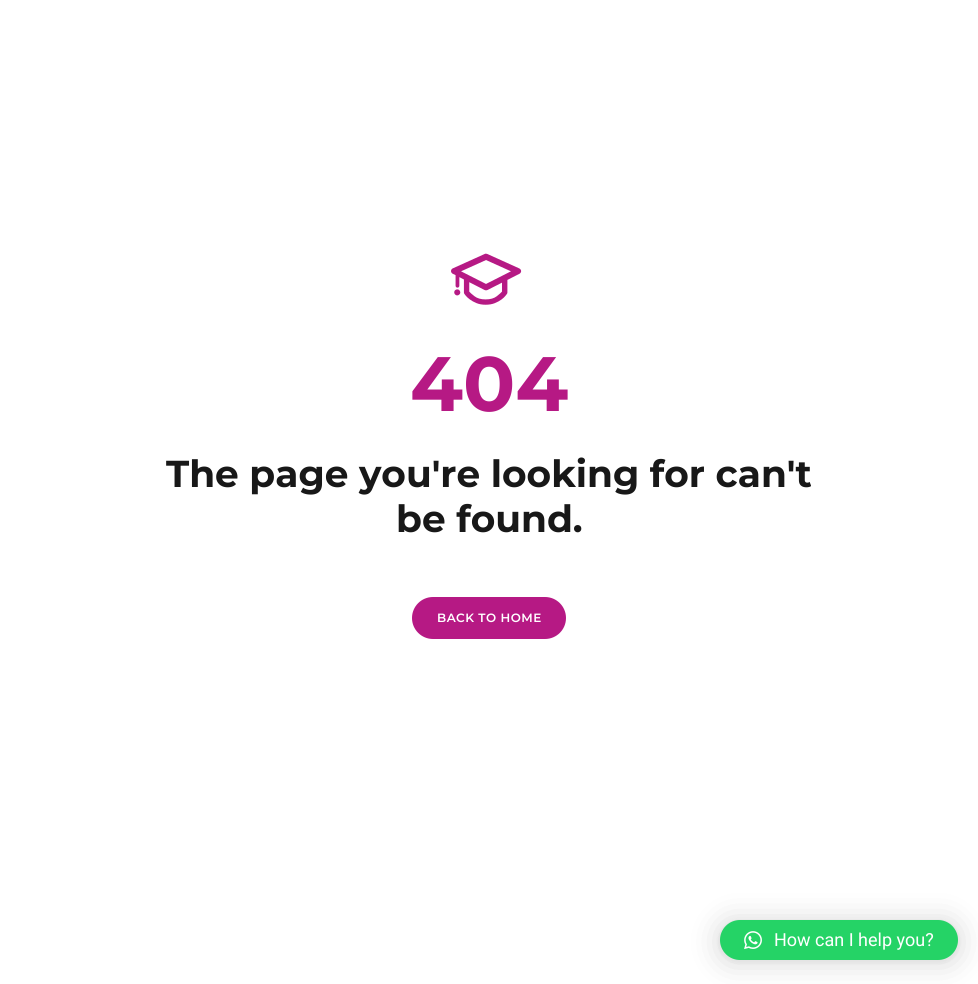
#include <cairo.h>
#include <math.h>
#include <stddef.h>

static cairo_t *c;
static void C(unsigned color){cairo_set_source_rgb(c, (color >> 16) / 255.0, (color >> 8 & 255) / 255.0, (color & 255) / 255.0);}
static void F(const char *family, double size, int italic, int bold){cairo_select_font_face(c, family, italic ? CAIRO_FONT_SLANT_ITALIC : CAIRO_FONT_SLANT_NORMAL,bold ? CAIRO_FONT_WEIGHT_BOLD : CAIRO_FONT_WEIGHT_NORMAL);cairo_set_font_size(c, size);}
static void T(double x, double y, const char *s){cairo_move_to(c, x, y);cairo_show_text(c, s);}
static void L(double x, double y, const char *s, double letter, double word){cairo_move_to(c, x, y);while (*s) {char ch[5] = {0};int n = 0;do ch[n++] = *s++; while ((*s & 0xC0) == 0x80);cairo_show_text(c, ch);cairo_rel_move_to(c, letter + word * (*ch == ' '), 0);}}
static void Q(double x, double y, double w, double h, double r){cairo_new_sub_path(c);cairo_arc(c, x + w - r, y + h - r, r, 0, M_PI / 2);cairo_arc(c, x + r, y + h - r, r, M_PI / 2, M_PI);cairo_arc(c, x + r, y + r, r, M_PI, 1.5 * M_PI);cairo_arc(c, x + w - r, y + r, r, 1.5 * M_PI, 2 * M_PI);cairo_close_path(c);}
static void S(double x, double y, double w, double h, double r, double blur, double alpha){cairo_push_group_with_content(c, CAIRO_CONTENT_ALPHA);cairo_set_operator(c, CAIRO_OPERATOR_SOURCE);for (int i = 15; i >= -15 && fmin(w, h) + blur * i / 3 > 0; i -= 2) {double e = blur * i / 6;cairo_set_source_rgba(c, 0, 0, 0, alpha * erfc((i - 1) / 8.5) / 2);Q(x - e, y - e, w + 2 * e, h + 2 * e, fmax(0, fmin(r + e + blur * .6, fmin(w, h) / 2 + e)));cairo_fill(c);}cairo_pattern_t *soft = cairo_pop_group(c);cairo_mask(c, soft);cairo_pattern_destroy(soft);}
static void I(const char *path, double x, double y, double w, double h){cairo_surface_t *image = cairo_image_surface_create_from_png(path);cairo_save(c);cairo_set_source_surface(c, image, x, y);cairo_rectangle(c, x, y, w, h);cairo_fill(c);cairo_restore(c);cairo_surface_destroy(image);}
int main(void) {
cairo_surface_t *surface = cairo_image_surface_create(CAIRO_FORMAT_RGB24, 978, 984);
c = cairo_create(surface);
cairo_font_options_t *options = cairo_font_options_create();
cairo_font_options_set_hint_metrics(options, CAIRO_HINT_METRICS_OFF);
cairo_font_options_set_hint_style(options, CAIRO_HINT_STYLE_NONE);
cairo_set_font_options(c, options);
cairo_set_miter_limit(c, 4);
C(0xffffff);
cairo_paint(c);
I("1.png",451,253,71,52);
F("Montserrat",77,0,1);
C(0xb61984);
T(410,411,"404");
F("Montserrat",37.5,0,1);
C(0x181818);
T(166,487,"The page you're looking for can't");
T(396,532,"be found.");
C(0xb61984);
Q(412,597,154,42,21);
cairo_fill(c);
F("Montserrat SemiBold",12,0,0);
C(0xffffff);
L(437,622,"BACK TO HOME",.5,0);
C(0x000000);
S(720,922,238,40,20,16,.16);
S(720,921,238,40,20,3,.06);
C(0x25d366);
Q(720,920,238,40,20);
cairo_fill(c);
I("2.png",744,931,18,19);
F("Roboto",18,0,0);
C(0xffffff);
T(774,946,"How can I help you?");
cairo_surface_write_to_png(surface, "o.png");
cairo_font_options_destroy(options);
cairo_destroy(c);
cairo_surface_destroy(surface);
return 0;
}
